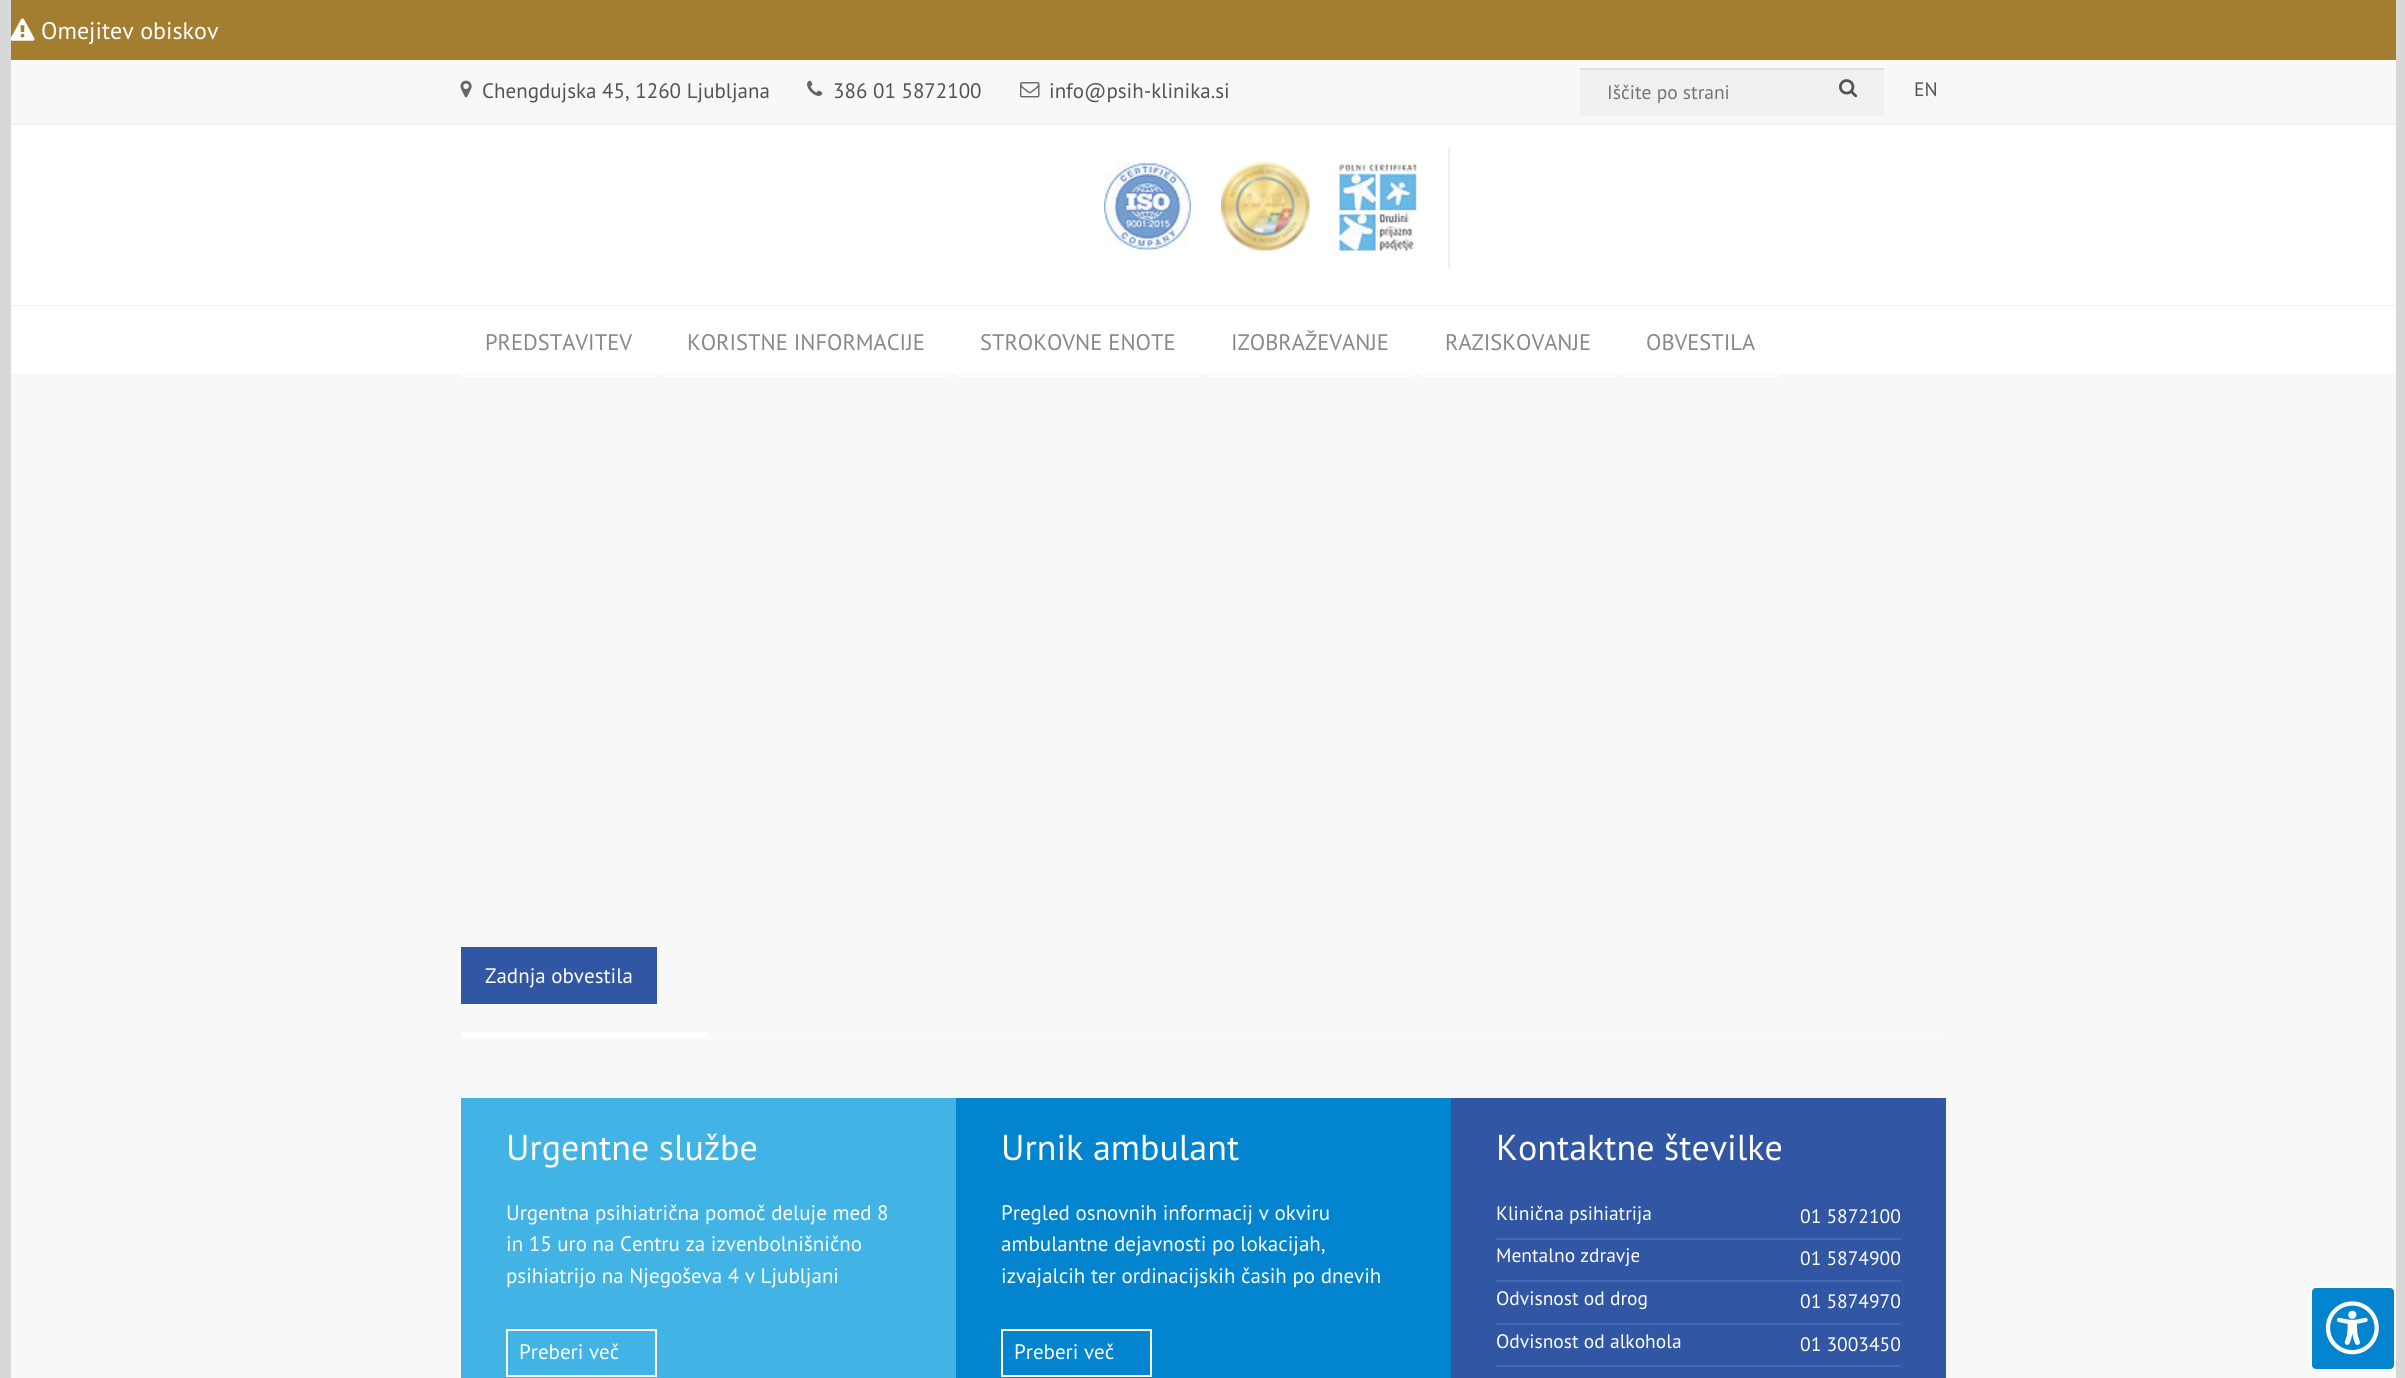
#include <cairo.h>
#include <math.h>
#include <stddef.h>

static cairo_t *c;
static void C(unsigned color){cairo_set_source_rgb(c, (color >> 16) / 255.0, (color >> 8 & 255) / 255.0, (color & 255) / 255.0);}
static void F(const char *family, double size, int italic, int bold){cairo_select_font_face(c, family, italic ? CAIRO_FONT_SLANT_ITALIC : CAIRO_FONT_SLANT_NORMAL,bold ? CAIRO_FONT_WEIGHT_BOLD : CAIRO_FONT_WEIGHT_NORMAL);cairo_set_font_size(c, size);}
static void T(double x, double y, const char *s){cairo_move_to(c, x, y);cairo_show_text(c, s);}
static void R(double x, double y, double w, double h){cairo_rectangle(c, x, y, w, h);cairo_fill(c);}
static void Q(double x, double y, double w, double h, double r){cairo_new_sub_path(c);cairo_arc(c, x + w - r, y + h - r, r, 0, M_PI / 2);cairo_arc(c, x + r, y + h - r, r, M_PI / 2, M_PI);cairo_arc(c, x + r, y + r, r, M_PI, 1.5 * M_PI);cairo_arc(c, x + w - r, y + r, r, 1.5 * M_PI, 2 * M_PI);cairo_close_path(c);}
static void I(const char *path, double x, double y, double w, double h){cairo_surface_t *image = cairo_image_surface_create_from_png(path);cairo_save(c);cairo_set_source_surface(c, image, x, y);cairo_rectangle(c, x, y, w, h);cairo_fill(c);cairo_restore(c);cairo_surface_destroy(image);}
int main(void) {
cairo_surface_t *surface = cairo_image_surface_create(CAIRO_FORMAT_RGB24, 2405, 1378);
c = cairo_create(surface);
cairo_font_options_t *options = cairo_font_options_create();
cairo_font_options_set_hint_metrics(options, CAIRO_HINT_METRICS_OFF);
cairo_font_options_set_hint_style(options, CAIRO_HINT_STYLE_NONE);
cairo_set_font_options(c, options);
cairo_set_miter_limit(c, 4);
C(0xd8d8d8);
cairo_paint(c);
C(0xf8f8f8);
R(11,60,2385,1318);
C(0xfbfbfb);
R(461,1038,247,1);
C(0xa37e31);
R(11,0,2385,60);
I("1.png",11,18,24,23);
F("PT Sans",24,0,0);
C(0xffffff);
T(41,39,"Omejitev obiskov");
C(0xf0f0f0);
R(11,123,2385,2);
I("2.png",460,80,12,18);
F("PT Sans",21,0,0);
C(0x545454);
T(482,98,"Chengdujska 45, 1260 Ljubljana");
I("3.png",807,80,16,16);
T(833,98,"386 01 5872100");
I("4.png",1020,82,20,16);
T(1049,98,"info@psih-klinika.si");
C(0xf0f0f0);
R(1580,70,304,46);
C(0xe0e0e0);
R(1580,68,304,2);
F("PT Sans",19.5,0,0);
C(0x757575);
T(1607,99,"Iščite po strani");
I("5.png",1839,79,19,19);
C(0x545454);
T(1914,96,"EN");
C(0xffffff);
R(11,125,2385,180);
C(0xf0f0f0);
R(11,305,2385,1);
R(1448,147,2,122);
I("6.png",1104,162,87,89);
I("7.png",1221,162,89,89);
I("8.png",1339,162,79,89);
C(0xffffff);
R(11,306,2385,68);
cairo_rectangle(c,462,307,193,69);
cairo_stroke(c);
F("PT Sans",22.5,0,0);
C(0x888888);
T(485,350,"PREDSTAVITEV");
cairo_rectangle(c,664,307,285,69);
C(0xffffff);
cairo_stroke(c);
C(0x888888);
T(687,350,"KORISTNE INFORMACIJE");
cairo_rectangle(c,958,307,241,69);
C(0xffffff);
cairo_stroke(c);
C(0x888888);
T(980,350,"STROKOVNE ENOTE");
cairo_rectangle(c,1209,307,203,69);
C(0xffffff);
cairo_stroke(c);
C(0x888888);
T(1231,350,"IZOBRAŽEVANJE");
cairo_rectangle(c,1422,307,193,69);
C(0xffffff);
cairo_stroke(c);
C(0x888888);
T(1445,350,"RAZISKOVANJE");
cairo_rectangle(c,1624,307,154,69);
C(0xffffff);
cairo_stroke(c);
C(0x888888);
T(1646,350,"OBVESTILA");
C(0x3156a3);
R(461,947,196,57);
F("PT Sans",21,0,0);
C(0xffffff);
T(485,983,"Zadnja obvestila");
R(461,1032,247,6);
C(0xfbfbfb);
R(708,1037,1238,2);
C(0x42b3e5);
R(461,1098,495,280);
F("PT Sans",36,0,0);
C(0xffffff);
T(506,1160,"Urgentne službe");
F("PT Sans",21,0,0);
T(506,1220,"Urgentna psihiatrična pomoč deluje med 8");
T(506,1251,"in 15 uro na Centru za izvenbolnišnično");
T(506,1283,"psihiatrijo na Njegoševa 4 v Ljubljani");
cairo_rectangle(c,507,1330,149,46);
cairo_stroke(c);
T(519,1359,"Preberi več");
C(0x0384ce);
R(956,1098,495,280);
F("PT Sans",36,0,0);
C(0xffffff);
T(1001,1160,"Urnik ambulant");
F("PT Sans",21,0,0);
T(1001,1220,"Pregled osnovnih informacij v okviru");
T(1001,1251,"ambulantne dejavnosti po lokacijah,");
T(1001,1283,"izvajalcih ter ordinacijskih časih po dnevih");
cairo_rectangle(c,1002,1330,149,46);
cairo_stroke(c);
T(1014,1359,"Preberi več");
C(0x3156a3);
R(1451,1098,495,280);
F("PT Sans",36,0,0);
C(0xffffff);
T(1496,1160,"Kontaktne številke");
C(0x4468b2);
R(1496,1238,405,2);
F("PT Sans",19.5,0,0);
C(0xffffff);
T(1496,1220,"Klinična psihiatrija");
T(1800,1223,"01 5872100");
C(0x4468b2);
R(1496,1280,405,2);
C(0xffffff);
T(1496,1262,"Mentalno zdravje");
T(1800,1265,"01 5874900");
C(0x4468b2);
R(1496,1323,405,2);
C(0xffffff);
T(1496,1305,"Odvisnost od drog");
T(1800,1308,"01 5874970");
C(0x4468b2);
R(1496,1365,405,2);
C(0xffffff);
T(1496,1348,"Odvisnost od alkohola");
T(1800,1351,"01 3003450");
C(0x0384ce);
Q(2311,1287,84,83,5);
cairo_fill_preserve(c);
C(0xffffff);
cairo_stroke(c);
I("9.png",2325,1301,54,54);
cairo_surface_write_to_png(surface, "o.png");
cairo_font_options_destroy(options);
cairo_destroy(c);
cairo_surface_destroy(surface);
return 0;
}
